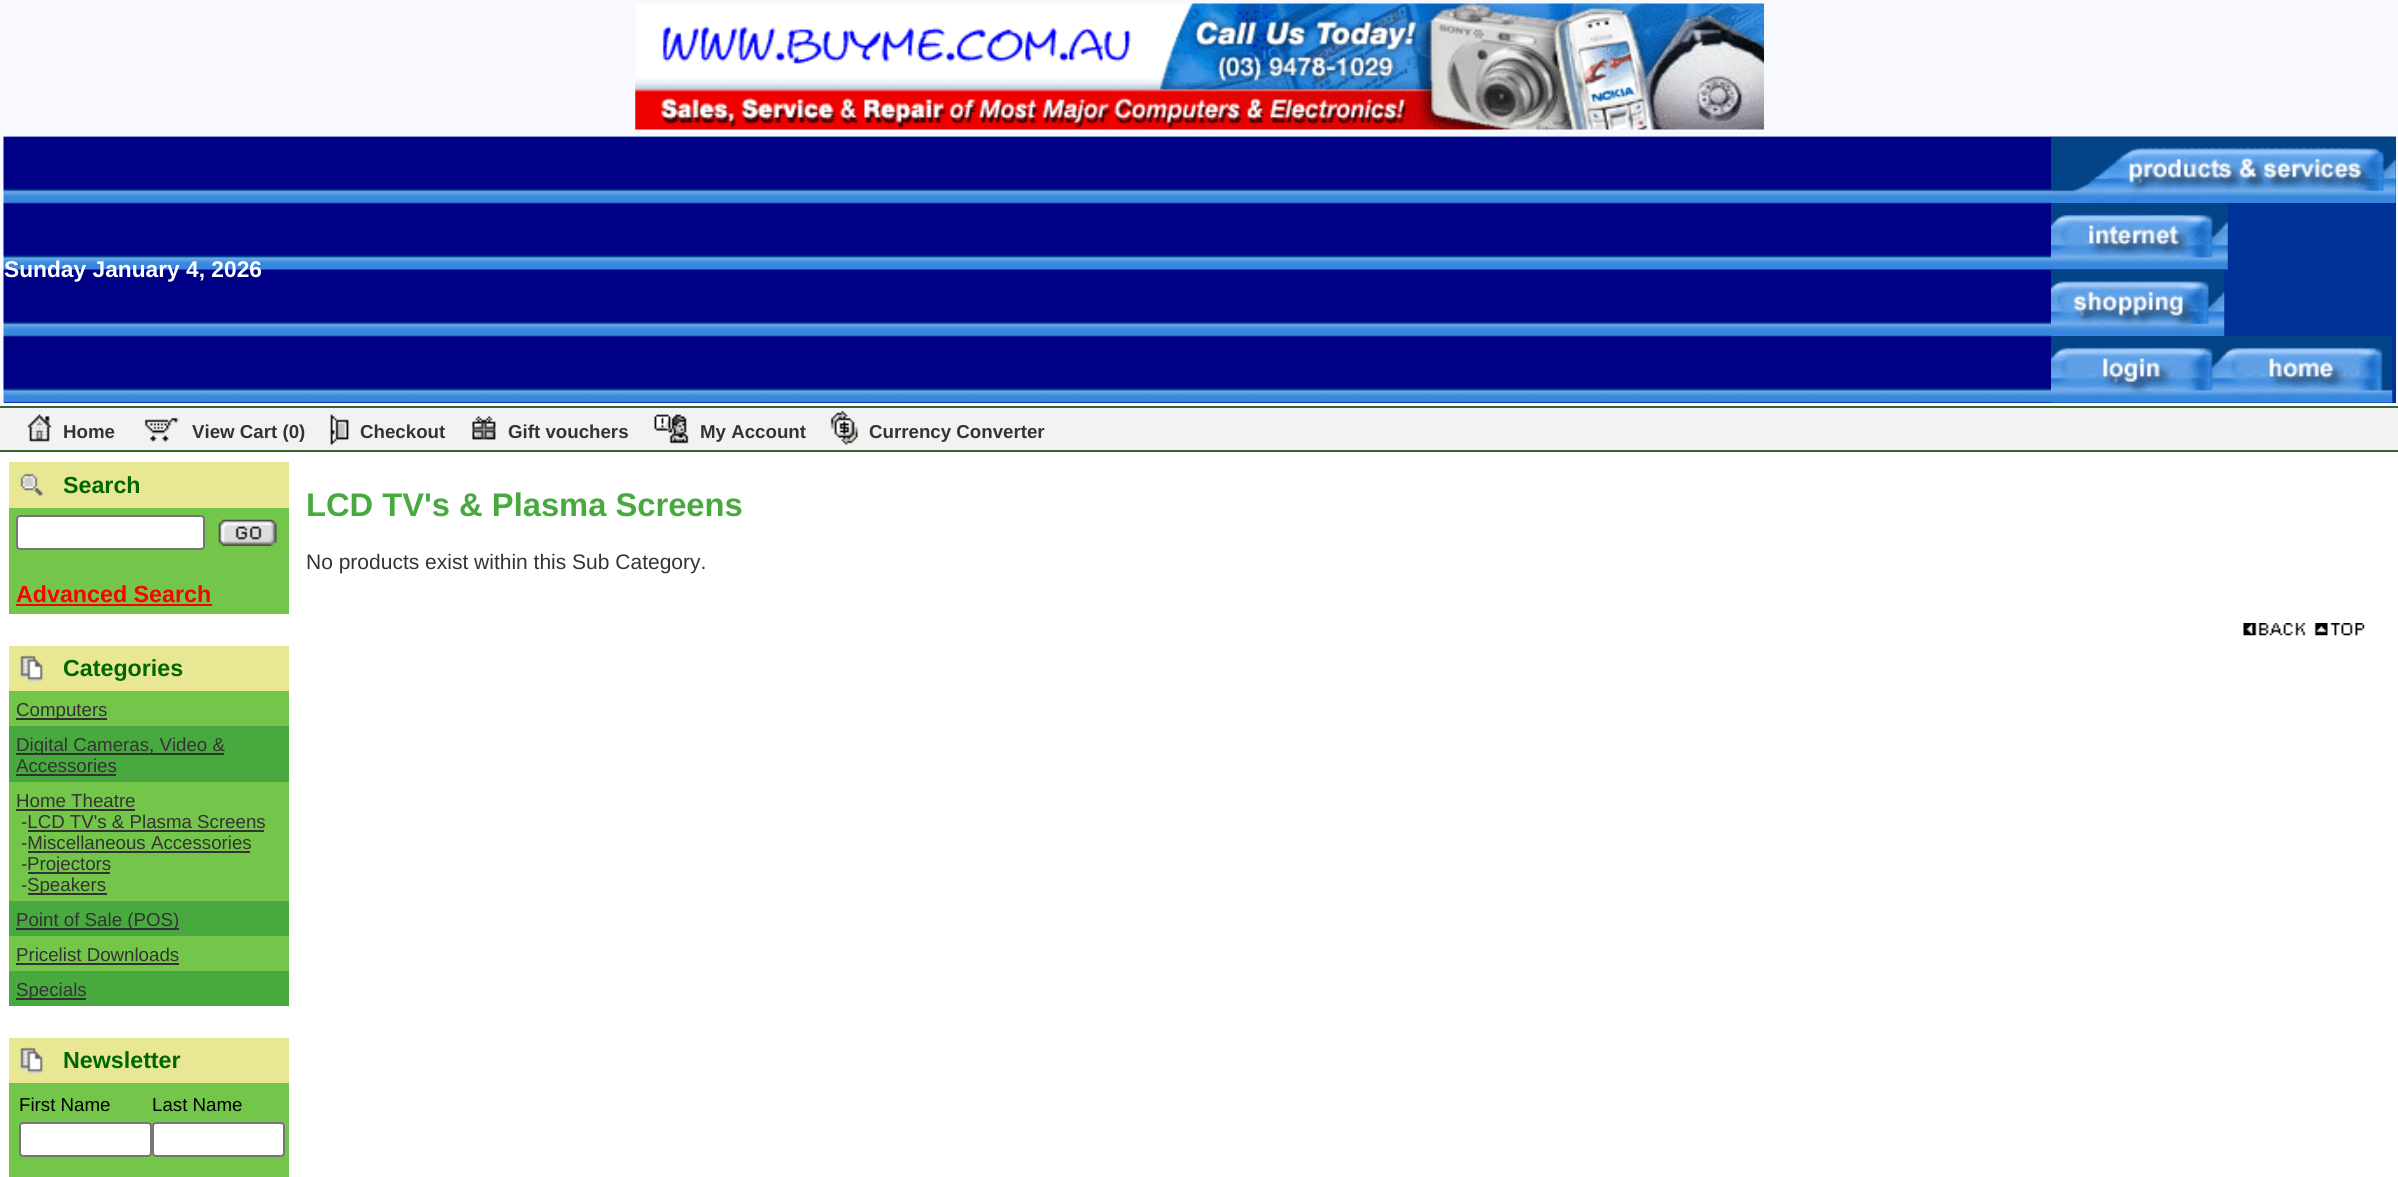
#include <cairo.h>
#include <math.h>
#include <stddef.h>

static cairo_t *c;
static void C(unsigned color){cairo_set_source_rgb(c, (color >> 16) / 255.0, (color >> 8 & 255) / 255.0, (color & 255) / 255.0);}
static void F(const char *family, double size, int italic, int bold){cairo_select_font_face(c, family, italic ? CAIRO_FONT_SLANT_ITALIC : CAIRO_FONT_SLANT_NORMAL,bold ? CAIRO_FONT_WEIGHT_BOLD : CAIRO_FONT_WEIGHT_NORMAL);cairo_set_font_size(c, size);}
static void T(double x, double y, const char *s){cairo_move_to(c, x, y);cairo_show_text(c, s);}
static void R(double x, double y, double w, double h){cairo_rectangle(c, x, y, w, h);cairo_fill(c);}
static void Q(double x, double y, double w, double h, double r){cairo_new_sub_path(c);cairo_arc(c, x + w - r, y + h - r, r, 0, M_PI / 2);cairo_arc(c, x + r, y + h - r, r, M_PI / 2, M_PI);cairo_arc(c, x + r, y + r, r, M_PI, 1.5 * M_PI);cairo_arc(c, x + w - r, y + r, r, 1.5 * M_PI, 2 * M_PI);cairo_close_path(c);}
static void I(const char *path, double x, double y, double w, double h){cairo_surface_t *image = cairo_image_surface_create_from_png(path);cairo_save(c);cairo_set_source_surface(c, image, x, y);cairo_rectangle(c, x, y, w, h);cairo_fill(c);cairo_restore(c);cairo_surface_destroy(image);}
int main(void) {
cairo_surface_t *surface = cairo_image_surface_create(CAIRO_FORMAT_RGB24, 2398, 1177);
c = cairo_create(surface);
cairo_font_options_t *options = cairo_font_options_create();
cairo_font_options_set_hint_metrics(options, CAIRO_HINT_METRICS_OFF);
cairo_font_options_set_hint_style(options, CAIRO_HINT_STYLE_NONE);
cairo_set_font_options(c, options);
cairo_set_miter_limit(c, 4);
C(0xffffff);
cairo_paint(c);
C(0xf8f8ff);
R(0,0,2398,406);
I("1.png",635,3,1129,127);
C(0x003399);
R(4,137,2392,266);
I("2.png",3,136,2048,267);
F("Liberation Sans",22.75,0,1);
C(0xffffff);
T(4,277,"Sunday January 4, 2026");
I("3.png",2051,136,345,67);
I("4.png",2051,203,177,67);
I("5.png",2051,269,174,67);
I("6.png",2051,336,175,67);
I("7.png",2226,336,167,67);
C(0x336633);
R(0,406,2398,2);
C(0xf3f2f2);
R(0,408,2398,42);
I("8.png",27,414,25,28);
F("Liberation Sans",18.7,0,1);
C(0x333333);
T(63,438,"Home");
I("9.png",144,417,35,25);
T(192,438,"View Cart (0)");
I("10.png",330,414,19,31);
T(360,438,"Checkout");
I("11.png",472,416,24,24);
T(508,438,"Gift vouchers");
I("12.png",654,414,35,30);
T(700,438,"My Account");
I("13.png",830,411,28,34);
T(869,438,"Currency Converter");
C(0x336633);
R(0,450,2398,2);
C(0xe7e794);
R(9,462,280,46);
I("14.png",20,473,23,23);
F("Liberation Sans",23.25,0,1);
C(0x006600);
T(63,493,"Search");
C(0x73c64a);
R(9,508,280,106);
C(0xffffff);
Q(17,516,187,33,3);
cairo_fill_preserve(c);
C(0x767676);
cairo_stroke(c);
I("15.png",218,519,59,27);
C(0xff0000);
T(16,602,"Advanced Search");
R(16,604,196,2);
C(0xe7e794);
R(9,646,280,45);
I("16.png",20,655,23,27);
C(0x006600);
T(63,676,"Categories");
C(0x73c64a);
R(9,691,280,35);
C(0x333333);
R(16,718,91,2);
F("Liberation Sans",18.7,0,0);
T(16,716,"Computers");
C(0x48a93f);
R(9,726,280,56);
C(0x333333);
R(16,753,208,2);
T(16,751,"Digital Cameras, Video &");
T(16,772,"Accessories");
R(16,774,100,2);
C(0x73c64a);
R(9,782,280,119);
C(0x333333);
T(16,807,"Home Theatre");
R(16,809,119,2);
T(21,828,"-LCD TV's & Plasma Screens");
R(28,830,236,2);
T(21,849,"-Miscellaneous Accessories");
R(28,851,222,2);
T(21,870,"-");
R(28,872,82,2);
T(27,870,"Projectors");
T(21,891,"-");
R(28,893,79,2);
T(27,891,"Speakers");
C(0x48a93f);
R(9,901,280,35);
C(0x333333);
R(16,928,163,2);
T(16,926,"Point of Sale (POS)");
C(0x73c64a);
R(9,936,280,35);
C(0x333333);
T(16,961,"Pricelist Downloads");
R(16,963,163,2);
C(0x48a93f);
R(9,971,280,35);
C(0x333333);
R(16,998,70,2);
T(16,996,"Specials");
C(0xe7e794);
R(9,1038,280,45);
I("16.png",20,1047,23,27);
F("Liberation Sans",23.25,0,1);
C(0x006600);
T(63,1068,"Newsletter");
C(0x73c64a);
R(9,1083,280,94);
F("Liberation Sans",18.7,0,0);
C(0x000000);
T(19,1111,"First Name");
T(152,1111,"Last Name");
C(0xffffff);
Q(20,1123,131,33,3);
cairo_fill_preserve(c);
C(0x767676);
cairo_stroke(c);
C(0xffffff);
Q(153,1123,131,33,3);
cairo_fill_preserve(c);
C(0x767676);
cairo_stroke(c);
F("Liberation Sans",32.7,0,1);
C(0x48a93f);
T(306,516,"LCD TV's & Plasma Screens");
F("Liberation Sans",21,0,0);
C(0x333333);
T(306,569,"No products exist within this Sub Category.");
I("17.png",2243,623,122,13);
cairo_surface_write_to_png(surface, "o.png");
cairo_font_options_destroy(options);
cairo_destroy(c);
cairo_surface_destroy(surface);
return 0;
}
